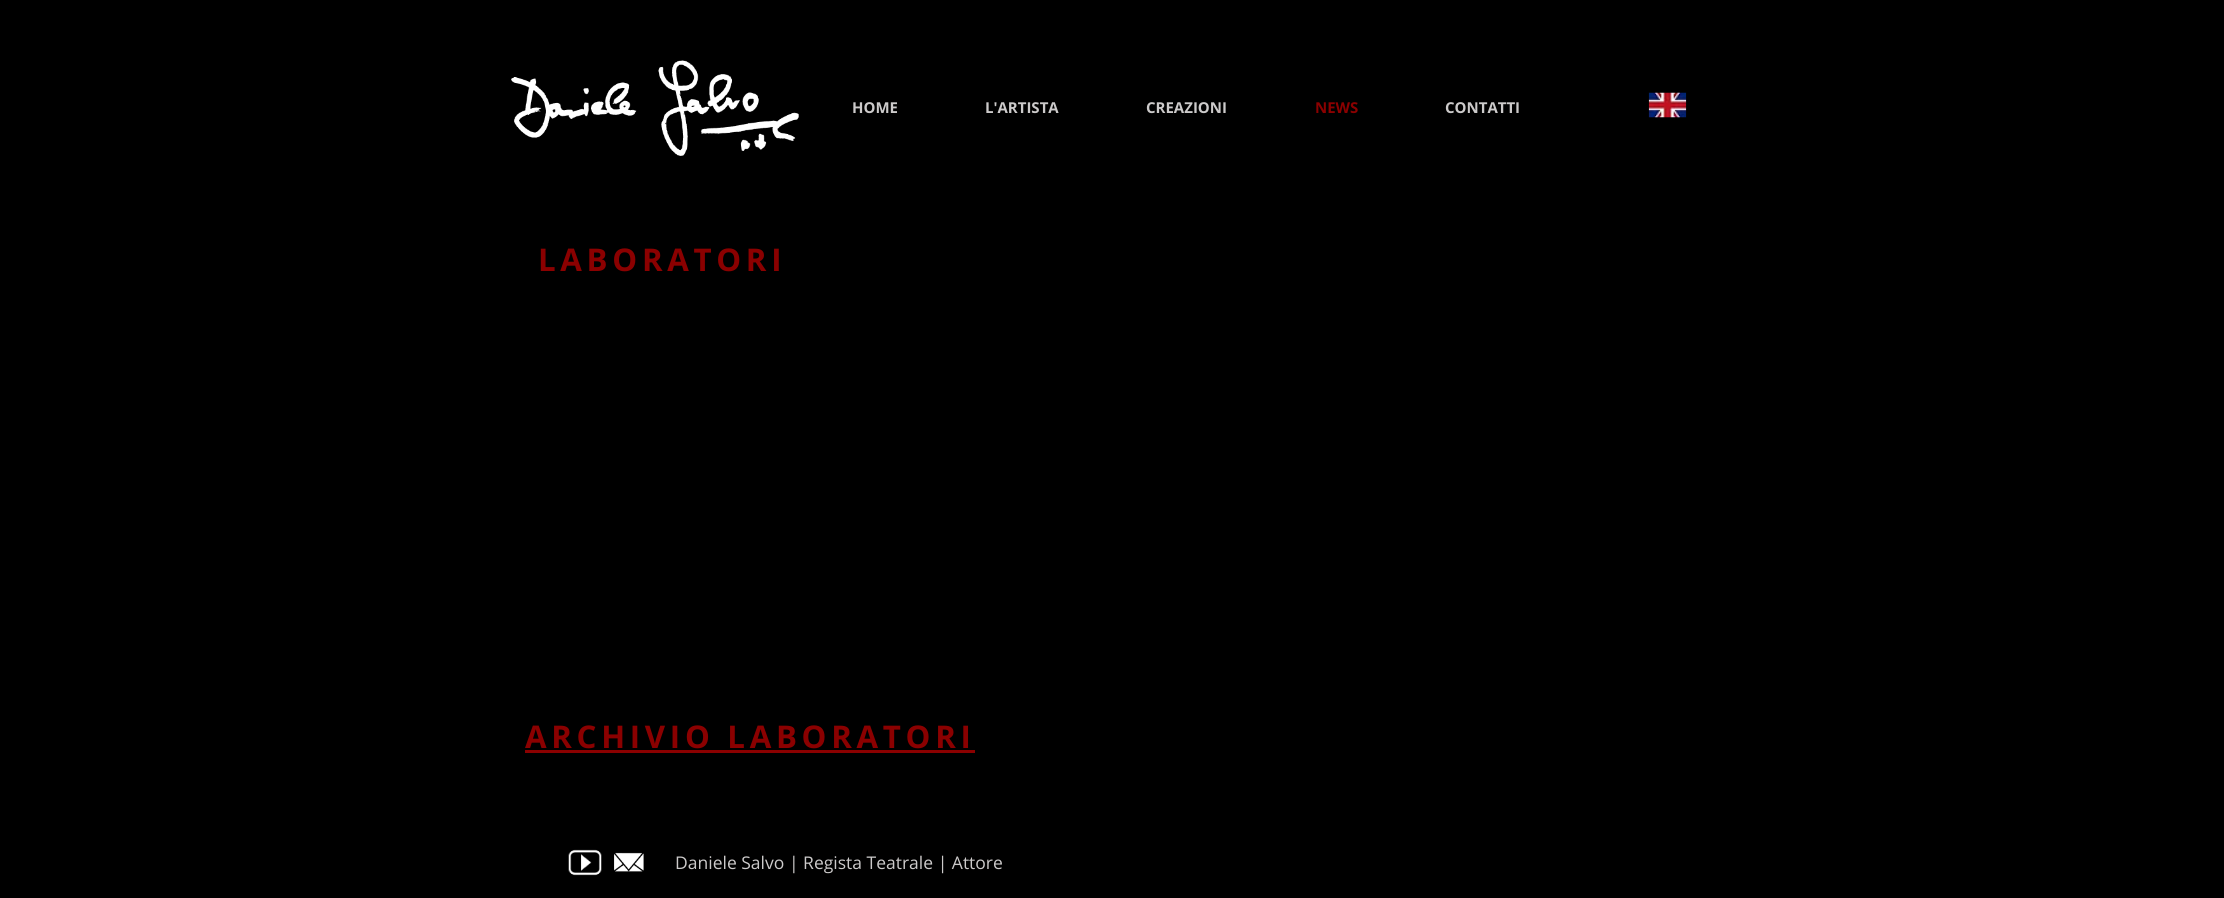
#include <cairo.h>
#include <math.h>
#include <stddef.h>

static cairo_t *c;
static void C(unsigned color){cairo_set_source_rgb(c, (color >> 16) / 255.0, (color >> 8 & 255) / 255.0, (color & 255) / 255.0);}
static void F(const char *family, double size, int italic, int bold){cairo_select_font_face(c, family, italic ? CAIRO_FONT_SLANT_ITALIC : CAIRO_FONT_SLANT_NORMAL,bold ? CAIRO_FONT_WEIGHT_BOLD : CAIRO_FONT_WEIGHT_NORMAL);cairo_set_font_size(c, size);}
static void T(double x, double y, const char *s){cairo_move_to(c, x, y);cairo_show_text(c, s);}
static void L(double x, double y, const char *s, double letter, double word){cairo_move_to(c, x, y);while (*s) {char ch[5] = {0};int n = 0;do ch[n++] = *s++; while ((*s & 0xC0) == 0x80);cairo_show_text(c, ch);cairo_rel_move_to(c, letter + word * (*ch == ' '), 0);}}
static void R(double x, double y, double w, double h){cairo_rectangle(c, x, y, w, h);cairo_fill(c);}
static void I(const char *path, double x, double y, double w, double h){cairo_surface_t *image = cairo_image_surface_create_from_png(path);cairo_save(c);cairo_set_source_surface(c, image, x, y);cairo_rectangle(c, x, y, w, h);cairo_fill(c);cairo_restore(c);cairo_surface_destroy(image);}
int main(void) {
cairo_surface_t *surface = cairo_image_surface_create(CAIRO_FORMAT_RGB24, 2224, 898);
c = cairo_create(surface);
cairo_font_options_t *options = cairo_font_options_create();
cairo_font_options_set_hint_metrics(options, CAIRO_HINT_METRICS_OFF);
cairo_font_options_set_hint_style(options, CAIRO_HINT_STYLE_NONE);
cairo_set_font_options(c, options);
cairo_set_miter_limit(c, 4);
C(0x000000);
cairo_paint(c);
I("1.png",511,60,288,96);
F("Open Sans",15,0,1);
C(0xcccaca);
T(852,113,"HOME");
T(985,113,"L'ARTISTA");
T(1146,113,"CREAZIONI");
C(0x8b0000);
T(1315,113,"NEWS");
C(0xcccaca);
T(1445,113,"CONTATTI");
I("2.png",1648,92,39,26);
F("Open Sans",31.25,0,1);
C(0x8b0000);
L(538,271,"LABORATORI",4.7,0);
L(525,748,"ARCHIVIO LABORATORI",4.7,0);
R(525,750,450,3);
I("3.png",568,849,34,27);
I("4.png",614,852,30,20);
F("Open Sans",17.5,0,0);
C(0xcccaca);
T(675,869,"Daniele Salvo | Regista Teatrale | Attore");
cairo_surface_write_to_png(surface, "o.png");
cairo_font_options_destroy(options);
cairo_destroy(c);
cairo_surface_destroy(surface);
return 0;
}
